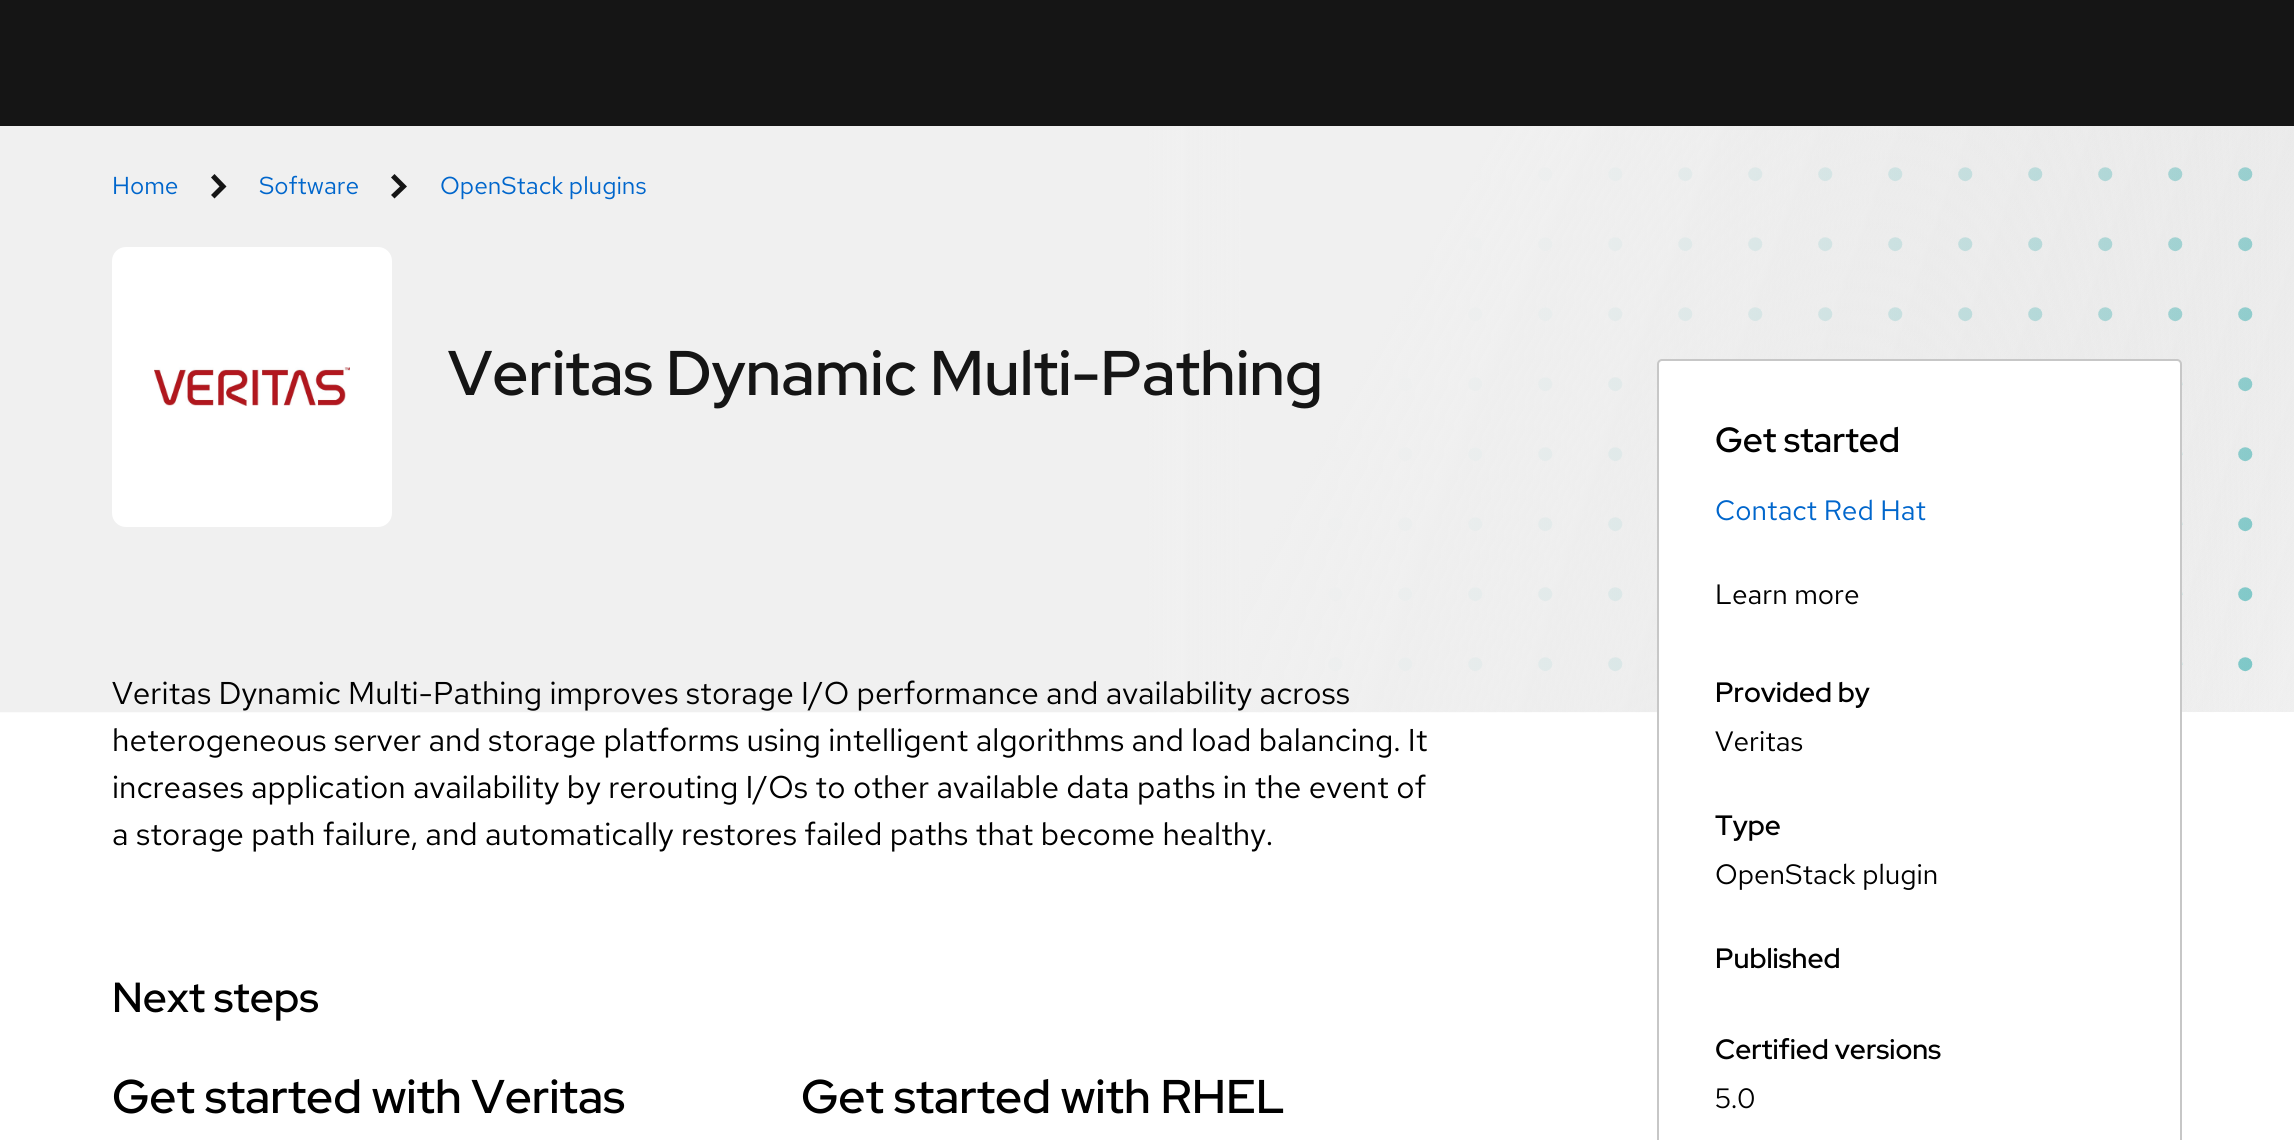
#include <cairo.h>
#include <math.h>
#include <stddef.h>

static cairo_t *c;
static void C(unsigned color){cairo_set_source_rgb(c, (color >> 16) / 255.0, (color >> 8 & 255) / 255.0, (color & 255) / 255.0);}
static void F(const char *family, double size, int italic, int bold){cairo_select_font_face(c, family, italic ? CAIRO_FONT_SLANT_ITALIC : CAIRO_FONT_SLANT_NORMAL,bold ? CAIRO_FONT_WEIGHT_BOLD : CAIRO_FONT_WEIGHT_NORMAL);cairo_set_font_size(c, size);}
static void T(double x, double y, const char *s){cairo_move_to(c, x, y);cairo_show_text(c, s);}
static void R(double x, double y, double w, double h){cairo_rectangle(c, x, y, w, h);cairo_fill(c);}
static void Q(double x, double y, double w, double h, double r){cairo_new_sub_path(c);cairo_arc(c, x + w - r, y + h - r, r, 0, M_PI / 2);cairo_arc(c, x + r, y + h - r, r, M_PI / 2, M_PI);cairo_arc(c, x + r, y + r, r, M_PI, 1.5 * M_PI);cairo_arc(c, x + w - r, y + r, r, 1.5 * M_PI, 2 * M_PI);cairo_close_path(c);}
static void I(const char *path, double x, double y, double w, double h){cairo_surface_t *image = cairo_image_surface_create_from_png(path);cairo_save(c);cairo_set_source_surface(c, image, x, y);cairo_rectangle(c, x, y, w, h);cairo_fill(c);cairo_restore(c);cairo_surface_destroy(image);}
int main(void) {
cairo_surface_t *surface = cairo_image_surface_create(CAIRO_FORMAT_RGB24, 2294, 1140);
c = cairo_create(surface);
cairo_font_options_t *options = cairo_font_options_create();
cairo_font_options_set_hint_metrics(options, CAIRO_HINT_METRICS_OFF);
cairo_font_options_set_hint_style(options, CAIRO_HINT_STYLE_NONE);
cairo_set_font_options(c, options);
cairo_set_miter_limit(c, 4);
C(0xffffff);
cairo_paint(c);
C(0x151515);
R(0,0,2294,126);
C(0xf0f0f0);
R(1154,126,1140,586);
I("1.png",0,126,2294,587);
F("Red Hat Text",24.5,0,0);
C(0x0066cc);
T(112,194,"Home");
C(0x151515);
cairo_new_path(c);
cairo_move_to(c,214.5,198.5);
cairo_line_to(c,211,195);
cairo_line_to(c,219.5,186.5);
cairo_line_to(c,211,177.5);
cairo_line_to(c,214.5,174);
cairo_line_to(c,226.5,186.5);
cairo_close_path(c);
cairo_fill(c);
C(0x0066cc);
T(259,194,"Software");
C(0x151515);
cairo_new_path(c);
cairo_move_to(c,394.5,198.5);
cairo_line_to(c,391,195);
cairo_line_to(c,400,186.5);
cairo_line_to(c,391,177.5);
cairo_line_to(c,394.5,174);
cairo_line_to(c,407,186.5);
cairo_close_path(c);
cairo_fill(c);
C(0x0066cc);
T(440,194,"OpenStack plugins");
C(0xffffff);
Q(112,247,280,280,14);
cairo_fill(c);
I("2.png",154,367,196,39);
F("Red Hat Display Medium",63,0,0);
C(0x151515);
T(448,395,"Veritas Dynamic Multi-Pathing");
F("Red Hat Text",31.5,0,0);
C(0x000000);
T(112,704,"Veritas Dynamic Multi-Pathing improves storage I/O performance and availability across");
T(112,751,"heterogeneous server and storage platforms using intelligent algorithms and load balancing. It");
T(112,798,"increases application availability by rerouting I/Os to other available data paths in the event of");
T(112,845,"a storage path failure, and automatically restores failed paths that become healthy.");
F("Red Hat Display Medium",42,0,0);
T(112,1012,"Next steps");
F("Red Hat Display Medium",47.25,0,0);
T(112,1113,"Get started with Veritas");
T(801,1113,"Get started with RHEL");
C(0xffffff);
Q(1658,360,523,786,4);
cairo_fill_preserve(c);
C(0xc7c7c7);
cairo_stroke(c);
F("Red Hat Display Medium",35,0,0);
C(0x000000);
T(1715,452,"Get started");
F("Red Hat Text",28,0,0);
C(0x0066cc);
T(1715,520,"Contact Red Hat");
C(0x000000);
T(1715,604,"Learn more");
F("Red Hat Display Medium",28,0,0);
T(1715,702,"Provided by");
F("Red Hat Text",28,0,0);
T(1715,751,"Veritas");
F("Red Hat Display Medium",28,0,0);
T(1715,835,"Type");
F("Red Hat Text",28,0,0);
T(1715,884,"OpenStack plugin");
F("Red Hat Display Medium",28,0,0);
T(1715,968,"Published");
T(1715,1059,"Certified versions");
F("Red Hat Text",28,0,0);
T(1715,1108,"5.0");
cairo_surface_write_to_png(surface, "o.png");
cairo_font_options_destroy(options);
cairo_destroy(c);
cairo_surface_destroy(surface);
return 0;
}
